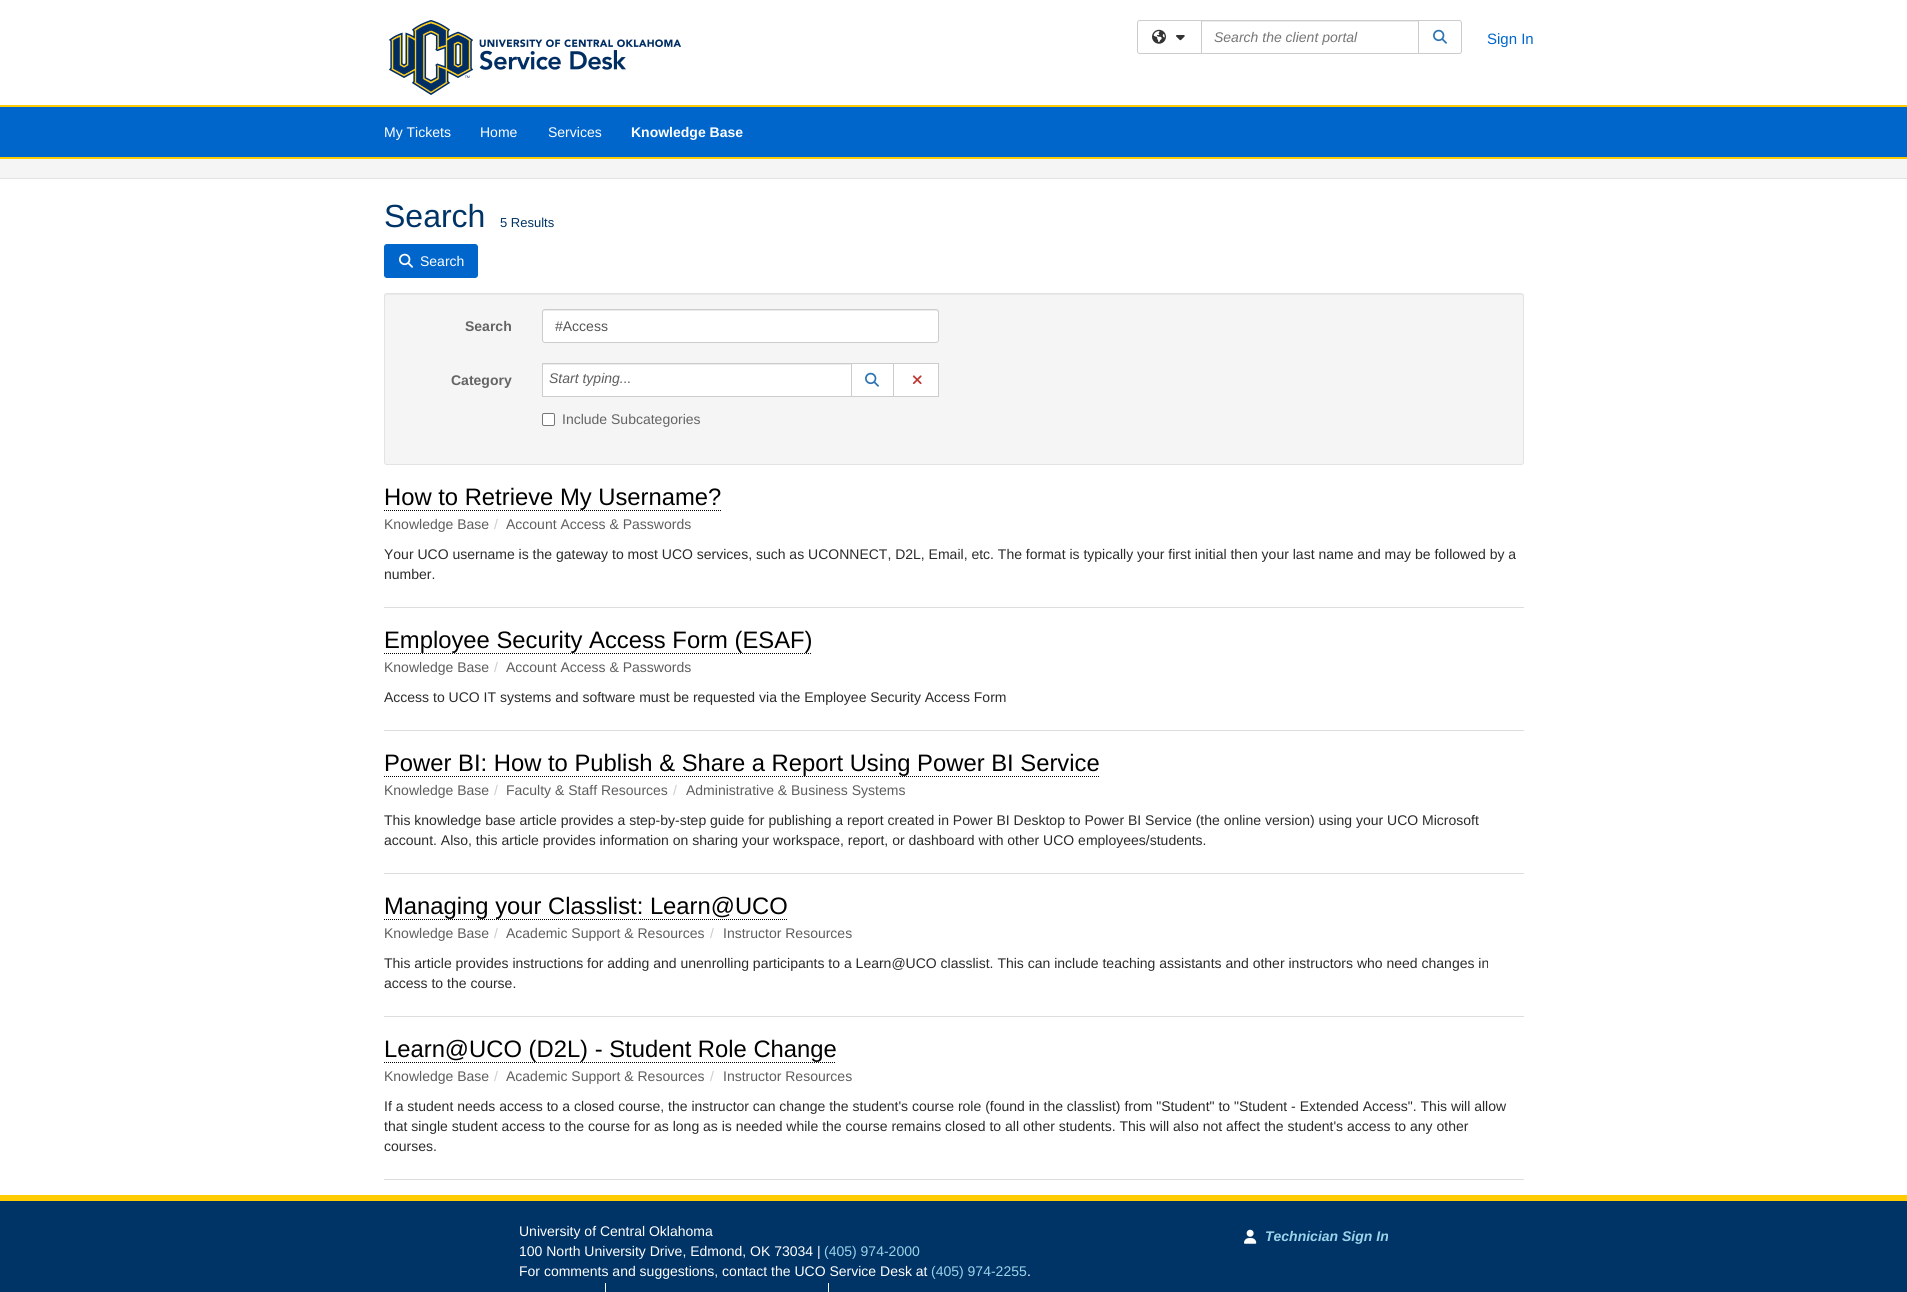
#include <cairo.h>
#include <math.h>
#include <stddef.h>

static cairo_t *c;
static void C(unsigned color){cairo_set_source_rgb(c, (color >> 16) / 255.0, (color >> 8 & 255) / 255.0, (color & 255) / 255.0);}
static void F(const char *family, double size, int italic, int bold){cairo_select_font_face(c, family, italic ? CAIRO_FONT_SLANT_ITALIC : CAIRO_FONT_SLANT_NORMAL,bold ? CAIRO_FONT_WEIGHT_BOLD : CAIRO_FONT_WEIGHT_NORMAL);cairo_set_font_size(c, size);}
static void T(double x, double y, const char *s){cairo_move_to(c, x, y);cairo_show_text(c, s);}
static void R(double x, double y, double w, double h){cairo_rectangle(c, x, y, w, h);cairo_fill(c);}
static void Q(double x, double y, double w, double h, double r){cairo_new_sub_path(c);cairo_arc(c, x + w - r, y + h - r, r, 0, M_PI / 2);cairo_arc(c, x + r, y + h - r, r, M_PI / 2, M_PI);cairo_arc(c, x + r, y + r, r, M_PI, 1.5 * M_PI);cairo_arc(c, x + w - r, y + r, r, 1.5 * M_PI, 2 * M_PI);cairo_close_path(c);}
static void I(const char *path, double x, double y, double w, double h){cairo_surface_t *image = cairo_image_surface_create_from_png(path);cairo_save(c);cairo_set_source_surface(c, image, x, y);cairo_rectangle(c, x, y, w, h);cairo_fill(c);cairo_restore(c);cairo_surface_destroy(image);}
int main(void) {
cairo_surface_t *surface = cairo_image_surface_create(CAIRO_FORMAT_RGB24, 1907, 1292);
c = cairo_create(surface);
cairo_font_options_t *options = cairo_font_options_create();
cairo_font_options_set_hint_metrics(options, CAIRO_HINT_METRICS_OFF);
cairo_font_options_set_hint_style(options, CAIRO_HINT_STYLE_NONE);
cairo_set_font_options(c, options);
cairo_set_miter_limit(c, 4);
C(0xffffff);
cairo_paint(c);
I("1.png",389,20,292,75);
cairo_new_path(c);
cairo_move_to(c,1140,20.5);
cairo_line_to(c,1201.5,20.5);
cairo_line_to(c,1201.5,53.5);
cairo_line_to(c,1140,53.5);
cairo_curve_to(c,1138.5,53.5,1137.5,52.5,1137.5,51);
cairo_line_to(c,1137.5,23);
cairo_curve_to(c,1137.5,21.5,1138.5,20.5,1140,20.5);
cairo_close_path(c);
C(0xcccccc);
cairo_set_line_width(c,1);
cairo_stroke(c);
I("2.png",1152,29,14,15);
I("3.png",1176,35,9,6);
C(0xececec);
R(1202,21,216,1);
cairo_rectangle(c,1201.5,20.5,217,33);
C(0xcccccc);
cairo_stroke(c);
F("Liberation Sans",14,1,0);
C(0x767676);
T(1214,42,"Search the client portal");
C(0xffffff);
cairo_new_path(c);
cairo_move_to(c,1418.5,20.5);
cairo_line_to(c,1459,20.5);
cairo_curve_to(c,1460.5,20.5,1461.5,21.5,1461.5,23);
cairo_line_to(c,1461.5,51);
cairo_curve_to(c,1461.5,52.5,1460.5,53.5,1459,53.5);
cairo_line_to(c,1418.5,53.5);
cairo_close_path(c);
cairo_fill_preserve(c);
C(0xcccccc);
cairo_stroke(c);
I("4.png",1433,29,14,15);
F("Liberation Sans",15,0,0);
C(0x0066cc);
T(1487,44,"Sign In");
R(0,107,1907,50);
C(0xffcc00);
R(0,105,1907,2);
R(0,157,1907,2);
F("Liberation Sans",14,0,0);
C(0xffffff);
T(384,137,"My Tickets");
T(480,137,"Home");
T(548,137,"Services");
F("Liberation Sans",14,0,1);
T(631,137,"Knowledge Base");
C(0xf5f5f5);
R(0,159,1907,19);
C(0xe3e3e3);
R(0,178,1907,1);
F("Liberation Sans",32,0,0);
C(0x003366);
T(384,227,"Search");
F("Liberation Sans",13,0,0);
T(500,227,"5 Results");
C(0x0066cc);
Q(384.5,244.5,93,33,2.5);
cairo_fill_preserve(c);
cairo_stroke(c);
I("5.png",399,253,14,15);
F("Liberation Sans",14,0,0);
C(0xffffff);
T(420,266,"Search");
C(0xf5f5f5);
Q(384,293,1140,172,3);
cairo_fill(c);
C(0xe9e9e9);
cairo_new_path(c);
cairo_move_to(c,387,295);
cairo_line_to(c,1521,295);
cairo_curve_to(c,1522,295,1523,296,1523,297);
cairo_line_to(c,1523,295);
cairo_line_to(c,1521,294);
cairo_line_to(c,387,294);
cairo_curve_to(c,386,294,385,295,385,296);
cairo_line_to(c,385,297);
cairo_curve_to(c,385,296,386,295,387,295);
cairo_close_path(c);
cairo_fill(c);
Q(384.5,293.5,1139,171,2.5);
C(0xe3e3e3);
cairo_stroke(c);
F("Liberation Sans",14,0,1);
C(0x646464);
T(465,331,"Search");
C(0xffffff);
Q(542,309,397,34,3);
cairo_fill(c);
C(0xececec);
cairo_new_path(c);
cairo_move_to(c,545,311);
cairo_line_to(c,936,311);
cairo_curve_to(c,937,311,938,312,938,313);
cairo_line_to(c,938,311);
cairo_line_to(c,936,310);
cairo_line_to(c,544,310);
cairo_curve_to(c,543,311,543,312,543,313);
cairo_curve_to(c,543,312,544,311,545,311);
cairo_close_path(c);
cairo_fill(c);
Q(542.5,309.5,396,33,2.5);
C(0xcccccc);
cairo_stroke(c);
F("Liberation Sans",14,0,0);
C(0x555555);
T(555,331,"#Access");
F("Liberation Sans",14,0,1);
C(0x646464);
T(451,385,"Category");
C(0xffffff);
R(543,365,308,31);
C(0xececec);
R(543,364,308,1);
cairo_rectangle(c,542.5,363.5,309,33);
C(0xcdcdcd);
cairo_stroke(c);
F("Liberation Sans",14,1,0);
C(0x5e5e5e);
T(549,383,"Start typing...");
C(0xffffff);
cairo_rectangle(c,851.5,363.5,42,33);
cairo_fill_preserve(c);
C(0xcccccc);
cairo_stroke(c);
I("4.png",865,372,14,15);
C(0xffffff);
cairo_rectangle(c,893.5,363.5,45,33);
cairo_fill_preserve(c);
C(0xcccccc);
cairo_stroke(c);
I("6.png",912,375,10,10);
C(0xffffff);
Q(542.5,413.5,12,12,1.5);
cairo_fill_preserve(c);
C(0x767676);
cairo_stroke(c);
F("Liberation Sans",14,0,0);
C(0x646464);
T(562,424,"Include Subcategories");
C(0xdddddd);
R(384,607,1140,1);
F("Liberation Sans",23.8,0,0);
C(0x000000);
T(384,505,"How to Retrieve My Username?");
cairo_new_path(c);
cairo_move_to(c,384,510.5);
cairo_line_to(c,721,510.5);
cairo_set_dash(c,(double[]){1,1},2,0);
cairo_stroke(c);
F("Liberation Sans",14,0,0);
C(0x5e5e5e);
T(384,529,"Knowledge Base");
C(0xcccccc);
T(494,529,"/");
C(0x5e5e5e);
T(506,529,"Account Access & Passwords");
C(0x2b2b2b);
T(384,559,"Your UCO username is the gateway to most UCO services, such as UCONNECT, D2L, Email, etc. The format is typically your first initial then your last name and may be followed by a");
T(384,579,"number.");
C(0xdddddd);
R(384,730,1140,1);
F("Liberation Sans",23.8,0,0);
C(0x000000);
T(384,648,"Employee Security Access Form (ESAF)");
cairo_new_path(c);
cairo_move_to(c,384,653.5);
cairo_line_to(c,812,653.5);
cairo_stroke(c);
F("Liberation Sans",14,0,0);
C(0x5e5e5e);
T(384,672,"Knowledge Base");
C(0xcccccc);
T(494,672,"/");
C(0x5e5e5e);
T(506,672,"Account Access & Passwords");
C(0x2b2b2b);
T(384,702,"Access to UCO IT systems and software must be requested via the Employee Security Access Form");
C(0xdddddd);
R(384,873,1140,1);
F("Liberation Sans",23.8,0,0);
C(0x000000);
T(384,771,"Power BI: How to Publish & Share a Report Using Power BI Service");
cairo_new_path(c);
cairo_move_to(c,384,776.5);
cairo_line_to(c,1099,776.5);
cairo_stroke(c);
F("Liberation Sans",14,0,0);
C(0x5e5e5e);
T(384,795,"Knowledge Base");
C(0xcccccc);
T(494,795,"/");
C(0x5e5e5e);
T(506,795,"Faculty & Staff Resources");
C(0xcccccc);
T(673,795,"/");
C(0x5e5e5e);
T(686,795,"Administrative & Business Systems");
C(0x2b2b2b);
T(384,825,"This knowledge base article provides a step-by-step guide for publishing a report created in Power BI Desktop to Power BI Service (the online version) using your UCO Microsoft");
T(384,845,"account. Also, this article provides information on sharing your workspace, report, or dashboard with other UCO employees/students.");
C(0xdddddd);
R(384,1016,1140,1);
F("Liberation Sans",23.8,0,0);
C(0x000000);
T(384,914,"Managing your Classlist: Learn@UCO");
cairo_new_path(c);
cairo_move_to(c,384,919.5);
cairo_line_to(c,787,919.5);
cairo_stroke(c);
F("Liberation Sans",14,0,0);
C(0x5e5e5e);
T(384,938,"Knowledge Base");
C(0xcccccc);
T(494,938,"/");
C(0x5e5e5e);
T(506,938,"Academic Support & Resources");
C(0xcccccc);
T(710,938,"/");
C(0x5e5e5e);
T(723,938,"Instructor Resources");
C(0x2b2b2b);
T(384,968,"This article provides instructions for adding and unenrolling participants to a Learn@UCO classlist. This can include teaching assistants and other instructors who need changes in");
T(384,988,"access to the course.");
C(0xdddddd);
R(384,1179,1140,1);
F("Liberation Sans",23.8,0,0);
C(0x000000);
T(384,1057,"Learn@UCO (D2L) - Student Role Change");
cairo_new_path(c);
cairo_move_to(c,384,1062.5);
cairo_line_to(c,836,1062.5);
cairo_stroke(c);
F("Liberation Sans",14,0,0);
C(0x5e5e5e);
T(384,1081,"Knowledge Base");
C(0xcccccc);
T(494,1081,"/");
C(0x5e5e5e);
T(506,1081,"Academic Support & Resources");
C(0xcccccc);
T(710,1081,"/");
C(0x5e5e5e);
T(723,1081,"Instructor Resources");
C(0x2b2b2b);
T(384,1111,"If a student needs access to a closed course, the instructor can change the student's course role (found in the classlist) from \"Student\" to \"Student - Extended Access\". This will allow");
T(384,1131,"that single student access to the course for as long as is needed while the course remains closed to all other students. This will also not affect the student's access to any other");
T(384,1151,"courses.");
C(0x003366);
R(0,1201,1907,91);
C(0xffcc00);
R(0,1195,1907,6);
C(0xffffff);
T(519,1236,"University of Central Oklahoma");
T(519,1256,"100 North University Drive, Edmond, OK 73034 |");
C(0x9ad4e9);
T(824,1256,"(405) 974-2000");
C(0xffffff);
T(519,1276,"For comments and suggestions, contact the UCO Service Desk at");
C(0x9ad4e9);
T(931,1276,"(405) 974-2255");
C(0xffffff);
T(1027,1276,".");
R(605,1283,1,9);
R(828,1283,1,9);
I("7.png",1244,1229,13,15);
F("Liberation Sans",14,1,1);
C(0x9ad4e9);
T(1265,1241,"Technician Sign In");
cairo_surface_write_to_png(surface, "o.png");
cairo_font_options_destroy(options);
cairo_destroy(c);
cairo_surface_destroy(surface);
return 0;
}
